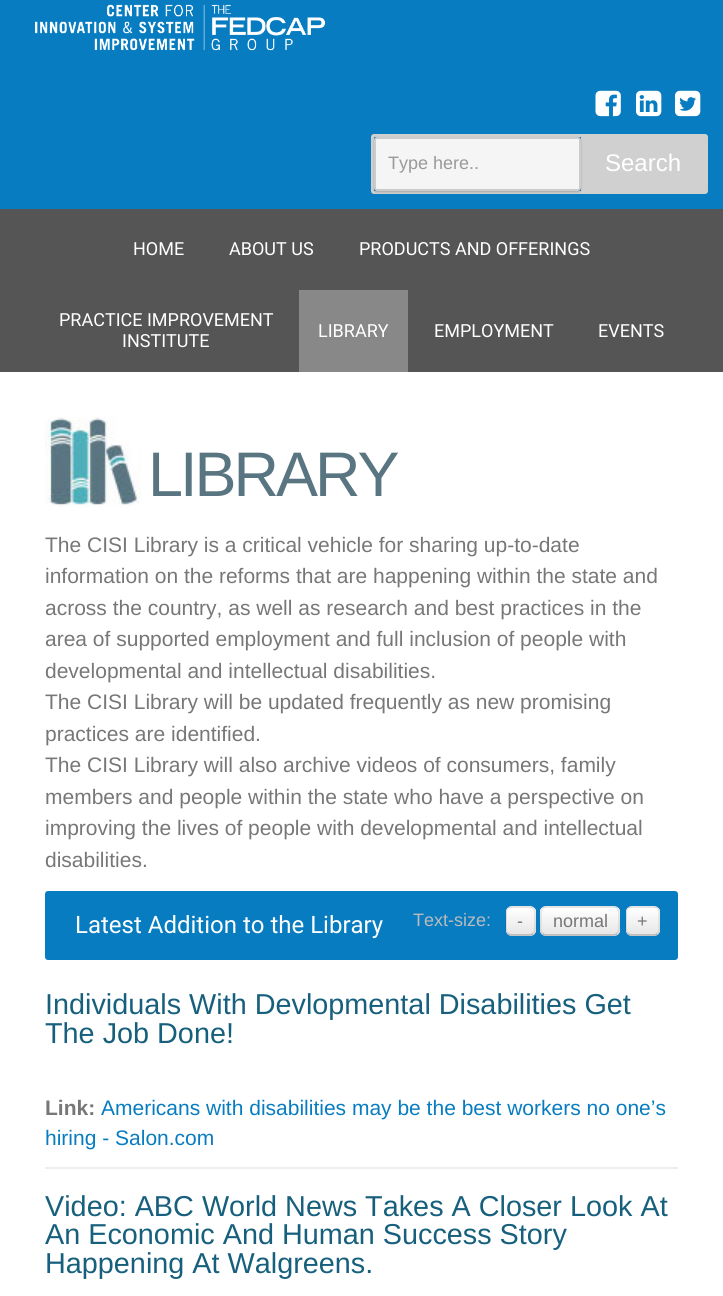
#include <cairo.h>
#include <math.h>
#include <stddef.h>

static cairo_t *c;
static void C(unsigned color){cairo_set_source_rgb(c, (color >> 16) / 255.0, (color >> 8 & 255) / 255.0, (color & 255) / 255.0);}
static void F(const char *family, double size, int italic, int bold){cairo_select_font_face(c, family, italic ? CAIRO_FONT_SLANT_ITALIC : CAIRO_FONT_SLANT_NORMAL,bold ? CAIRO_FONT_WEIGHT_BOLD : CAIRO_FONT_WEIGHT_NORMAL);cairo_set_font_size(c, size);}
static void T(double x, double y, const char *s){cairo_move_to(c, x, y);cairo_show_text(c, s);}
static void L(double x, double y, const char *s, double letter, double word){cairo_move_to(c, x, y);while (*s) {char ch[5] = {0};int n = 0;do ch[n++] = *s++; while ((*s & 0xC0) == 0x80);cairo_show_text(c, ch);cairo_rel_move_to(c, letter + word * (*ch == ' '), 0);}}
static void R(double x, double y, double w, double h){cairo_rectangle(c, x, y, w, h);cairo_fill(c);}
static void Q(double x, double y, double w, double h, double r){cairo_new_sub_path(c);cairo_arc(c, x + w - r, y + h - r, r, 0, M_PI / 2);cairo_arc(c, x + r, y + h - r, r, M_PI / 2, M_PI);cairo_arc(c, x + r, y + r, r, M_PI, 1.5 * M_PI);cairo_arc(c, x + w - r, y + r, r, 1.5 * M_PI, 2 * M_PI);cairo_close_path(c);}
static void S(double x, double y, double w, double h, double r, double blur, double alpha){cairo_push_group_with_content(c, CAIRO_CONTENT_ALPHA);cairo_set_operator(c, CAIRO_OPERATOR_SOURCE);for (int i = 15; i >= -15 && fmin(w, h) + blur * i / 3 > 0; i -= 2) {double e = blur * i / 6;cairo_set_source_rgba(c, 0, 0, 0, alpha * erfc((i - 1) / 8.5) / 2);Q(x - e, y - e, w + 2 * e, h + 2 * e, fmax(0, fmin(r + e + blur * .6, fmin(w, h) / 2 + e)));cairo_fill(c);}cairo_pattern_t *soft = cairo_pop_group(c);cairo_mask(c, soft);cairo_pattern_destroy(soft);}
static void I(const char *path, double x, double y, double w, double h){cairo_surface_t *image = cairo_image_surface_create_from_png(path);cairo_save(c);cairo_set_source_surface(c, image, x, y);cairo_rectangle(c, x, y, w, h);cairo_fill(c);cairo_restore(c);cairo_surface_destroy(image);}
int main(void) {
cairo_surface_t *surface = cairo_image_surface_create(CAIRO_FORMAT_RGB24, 723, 1296);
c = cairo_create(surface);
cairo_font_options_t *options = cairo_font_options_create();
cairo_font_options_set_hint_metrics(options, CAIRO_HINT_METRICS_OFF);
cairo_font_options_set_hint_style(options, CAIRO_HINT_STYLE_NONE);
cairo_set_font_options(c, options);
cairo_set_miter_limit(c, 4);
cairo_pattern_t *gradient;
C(0xffffff);
cairo_paint(c);
C(0x077cc1);
R(0,0,723,209);
I("1.png",35,4,291,47);
I("2.png",595,90,26,27);
I("3.png",636,90,26,27);
I("4.png",675,90,26,27);
Q(372.5,135.5,334,57,1.5);
C(0xd0d0d0);
cairo_set_line_width(c,3);
cairo_stroke(c);
R(581,137,124,54);
C(0x000000);
S(374,138,207,54,3,1,.2);
C(0xf5f5f5);
Q(375,138,205,52,2);
cairo_fill_preserve(c);
C(0xcccccc);
cairo_set_line_width(c,2);
cairo_stroke(c);
F("Liberation Sans",18,0,0);
C(0x999999);
T(388,169,"Type here..");
F("Liberation Sans",24,0,0);
C(0xffffff);
T(605,171,"Search");
C(0x555555);
R(0,209,723,163);
F("Roboto",18,0,0);
C(0xffffff);
T(133,255,"HOME");
T(229,255,"ABOUT US");
T(359,255,"PRODUCTS AND OFFERINGS");
T(59,326,"PRACTICE IMPROVEMENT");
T(122,347,"INSTITUTE");
C(0x888888);
R(299,290,109,82);
C(0xffffff);
T(318,337,"LIBRARY");
T(434,337,"EMPLOYMENT");
T(598,337,"EVENTS");
I("5.png",45,417,96,90);
F("Liberation Sans",63,0,0);
C(0x597581);
L(148,496,"LIBRARY",-3,0);
F("Liberation Sans",21,0,0);
C(0x777777);
T(45,552,"The CISI Library is a critical vehicle for sharing up-to-date");
T(45,583,"information on the reforms that are happening within the state and");
T(45,615,"across the country, as well as research and best practices in the");
T(45,646,"area of supported employment and full inclusion of people with");
T(45,678,"developmental and intellectual disabilities.");
T(45,709,"The CISI Library will be updated frequently as new promising");
T(45,741,"practices are identified.");
T(45,772,"The CISI Library will also archive videos of consumers, family");
T(45,804,"members and people within the state who have a perspective on");
T(45,835,"improving the lives of people with developmental and intellectual");
T(45,867,"disabilities.");
C(0x077cc1);
Q(45,891,633,69,3);
cairo_fill(c);
F("Roboto",24,0,0);
C(0xffffff);
T(75,933,"Latest Addition to the Library");
F("Liberation Sans",18,0,0);
C(0xbbbbbb);
T(413,926,"Text-size:");
C(0xf5f5f5);
Q(506,906,30,30,6);
cairo_fill(c);
cairo_save(c);
Q(506,906,30,30,6);
cairo_clip(c);
gradient = cairo_pattern_create_linear(521,908,521,935);
cairo_pattern_add_color_stop_rgba(gradient,0,1,1,1,1);
cairo_pattern_add_color_stop_rgba(gradient,1,0.902,0.902,0.902,1);
cairo_set_source(c,gradient);
cairo_pattern_destroy(gradient);
R(506,908,30,27);
cairo_restore(c);
cairo_new_path(c);
cairo_move_to(c,533,933.5);
cairo_curve_to(c,532,934.5,531,935,529.5,935);
cairo_line_to(c,511.5,935);
cairo_curve_to(c,510,935,509,934.5,508,933.5);
C(0xb3b3b3);
cairo_set_line_width(c,1.5);
cairo_stroke(c);
cairo_new_path(c);
cairo_move_to(c,508,933.5);
cairo_curve_to(c,506,932,506,929.5,506,927);
cairo_line_to(c,506.5,911);
cairo_curve_to(c,507,907,511,907,514.5,907);
cairo_line_to(c,520.5,907);
cairo_curve_to(c,535.5,907,535,906,535,921);
cairo_line_to(c,535,927);
cairo_curve_to(c,535,929.5,535,932,533,933.5);
cairo_set_source_rgba(c,0,0,0,0.1);
cairo_stroke(c);
C(0x777777);
T(517,927,"-");
C(0xf5f5f5);
Q(540,906,80,30,6);
cairo_fill(c);
cairo_save(c);
Q(540,906,80,30,6);
cairo_clip(c);
gradient = cairo_pattern_create_linear(580,908,580,935);
cairo_pattern_add_color_stop_rgba(gradient,0,1,1,1,1);
cairo_pattern_add_color_stop_rgba(gradient,1,0.902,0.902,0.902,1);
cairo_set_source(c,gradient);
cairo_pattern_destroy(gradient);
R(540,908,80,27);
cairo_restore(c);
C(0xffffff);
cairo_new_path(c);
cairo_move_to(c,546,909);
cairo_line_to(c,614,909);
cairo_curve_to(c,616,909,618,911,618,914);
cairo_curve_to(c,618,905,608,908,602,908);
cairo_line_to(c,558,908);
cairo_curve_to(c,552,908,542,905,542,914);
cairo_curve_to(c,542,911,544,909,546,909);
cairo_close_path(c);
cairo_fill(c);
cairo_new_path(c);
cairo_move_to(c,617,933.5);
cairo_curve_to(c,616,934.5,615,935,613.5,935);
cairo_line_to(c,546,935);
cairo_curve_to(c,544.5,935,543.5,934.5,542.5,933.5);
C(0xb3b3b3);
cairo_stroke(c);
cairo_new_path(c);
cairo_move_to(c,542.5,933.5);
cairo_curve_to(c,539.5,931,541,924.5,541,921);
cairo_curve_to(c,541,905,540.5,907,557,907);
cairo_line_to(c,602,907);
cairo_curve_to(c,616.5,907,619,904.5,619,918);
cairo_curve_to(c,619,921.5,620,930.5,617,933.5);
cairo_set_source_rgba(c,0,0,0,0.1);
cairo_stroke(c);
C(0x777777);
T(553,927,"normal");
C(0xf5f5f5);
Q(626,906,34,30,6);
cairo_fill(c);
cairo_save(c);
Q(626,906,34,30,6);
cairo_clip(c);
gradient = cairo_pattern_create_linear(643,908,643,935);
cairo_pattern_add_color_stop_rgba(gradient,0,1,1,1,1);
cairo_pattern_add_color_stop_rgba(gradient,1,0.902,0.902,0.902,1);
cairo_set_source(c,gradient);
cairo_pattern_destroy(gradient);
R(626,908,34,27);
cairo_restore(c);
cairo_set_source_rgba(c,1,1,1,0.2);
cairo_new_path(c);
cairo_move_to(c,632,909);
cairo_line_to(c,654,909);
cairo_curve_to(c,656,909,658,911,658,914);
cairo_line_to(c,658,932);
cairo_line_to(c,657.5,933.5);
cairo_curve_to(c,658.5,932.5,659,931.5,659,930);
cairo_line_to(c,659,913);
cairo_curve_to(c,659,910,657,908,654,908);
cairo_line_to(c,632,908);
cairo_curve_to(c,629,908,627,910,627,913);
cairo_line_to(c,627,914);
cairo_curve_to(c,627,911,629,909,632,909);
cairo_close_path(c);
cairo_fill(c);
cairo_new_path(c);
cairo_move_to(c,657.5,933.5);
cairo_curve_to(c,656.5,934.5,655.5,935,654,935);
cairo_line_to(c,631.5,935);
cairo_curve_to(c,630,935,629,934.5,628,933.5);
C(0xb3b3b3);
cairo_stroke(c);
cairo_new_path(c);
cairo_move_to(c,628,933.5);
cairo_curve_to(c,626,932,626,929.5,626,927);
cairo_line_to(c,626.5,911);
cairo_curve_to(c,627,906.5,631.5,907,635,907);
cairo_line_to(c,650,907);
cairo_curve_to(c,654,907,658.5,906.5,659,911);
cairo_line_to(c,659,927);
cairo_curve_to(c,659,929.5,659.5,932,657.5,933.5);
cairo_set_source_rgba(c,0,0,0,0.1);
cairo_stroke(c);
C(0x777777);
T(637,927,"+");
C(0xeeeeee);
R(45,1167,633,2);
F("Liberation Sans",28.8,0,0);
C(0x17607d);
T(45,1014,"Individuals With Devlopmental Disabilities Get");
T(45,1043,"The Job Done!");
F("Liberation Sans",21,0,1);
C(0x777777);
T(45,1115,"Link:");
F("Liberation Sans",21,0,0);
C(0x077cc1);
T(101,1115,"Americans with disabilities may be the best workers no one’s");
T(45,1145,"hiring - Salon.com");
F("Liberation Sans",28.8,0,0);
C(0x17607d);
T(45,1216,"Video: ABC World News Takes A Closer Look At");
T(45,1244,"An Economic And Human Success Story");
T(45,1273,"Happening At Walgreens.");
cairo_surface_write_to_png(surface, "o.png");
cairo_font_options_destroy(options);
cairo_destroy(c);
cairo_surface_destroy(surface);
return 0;
}
